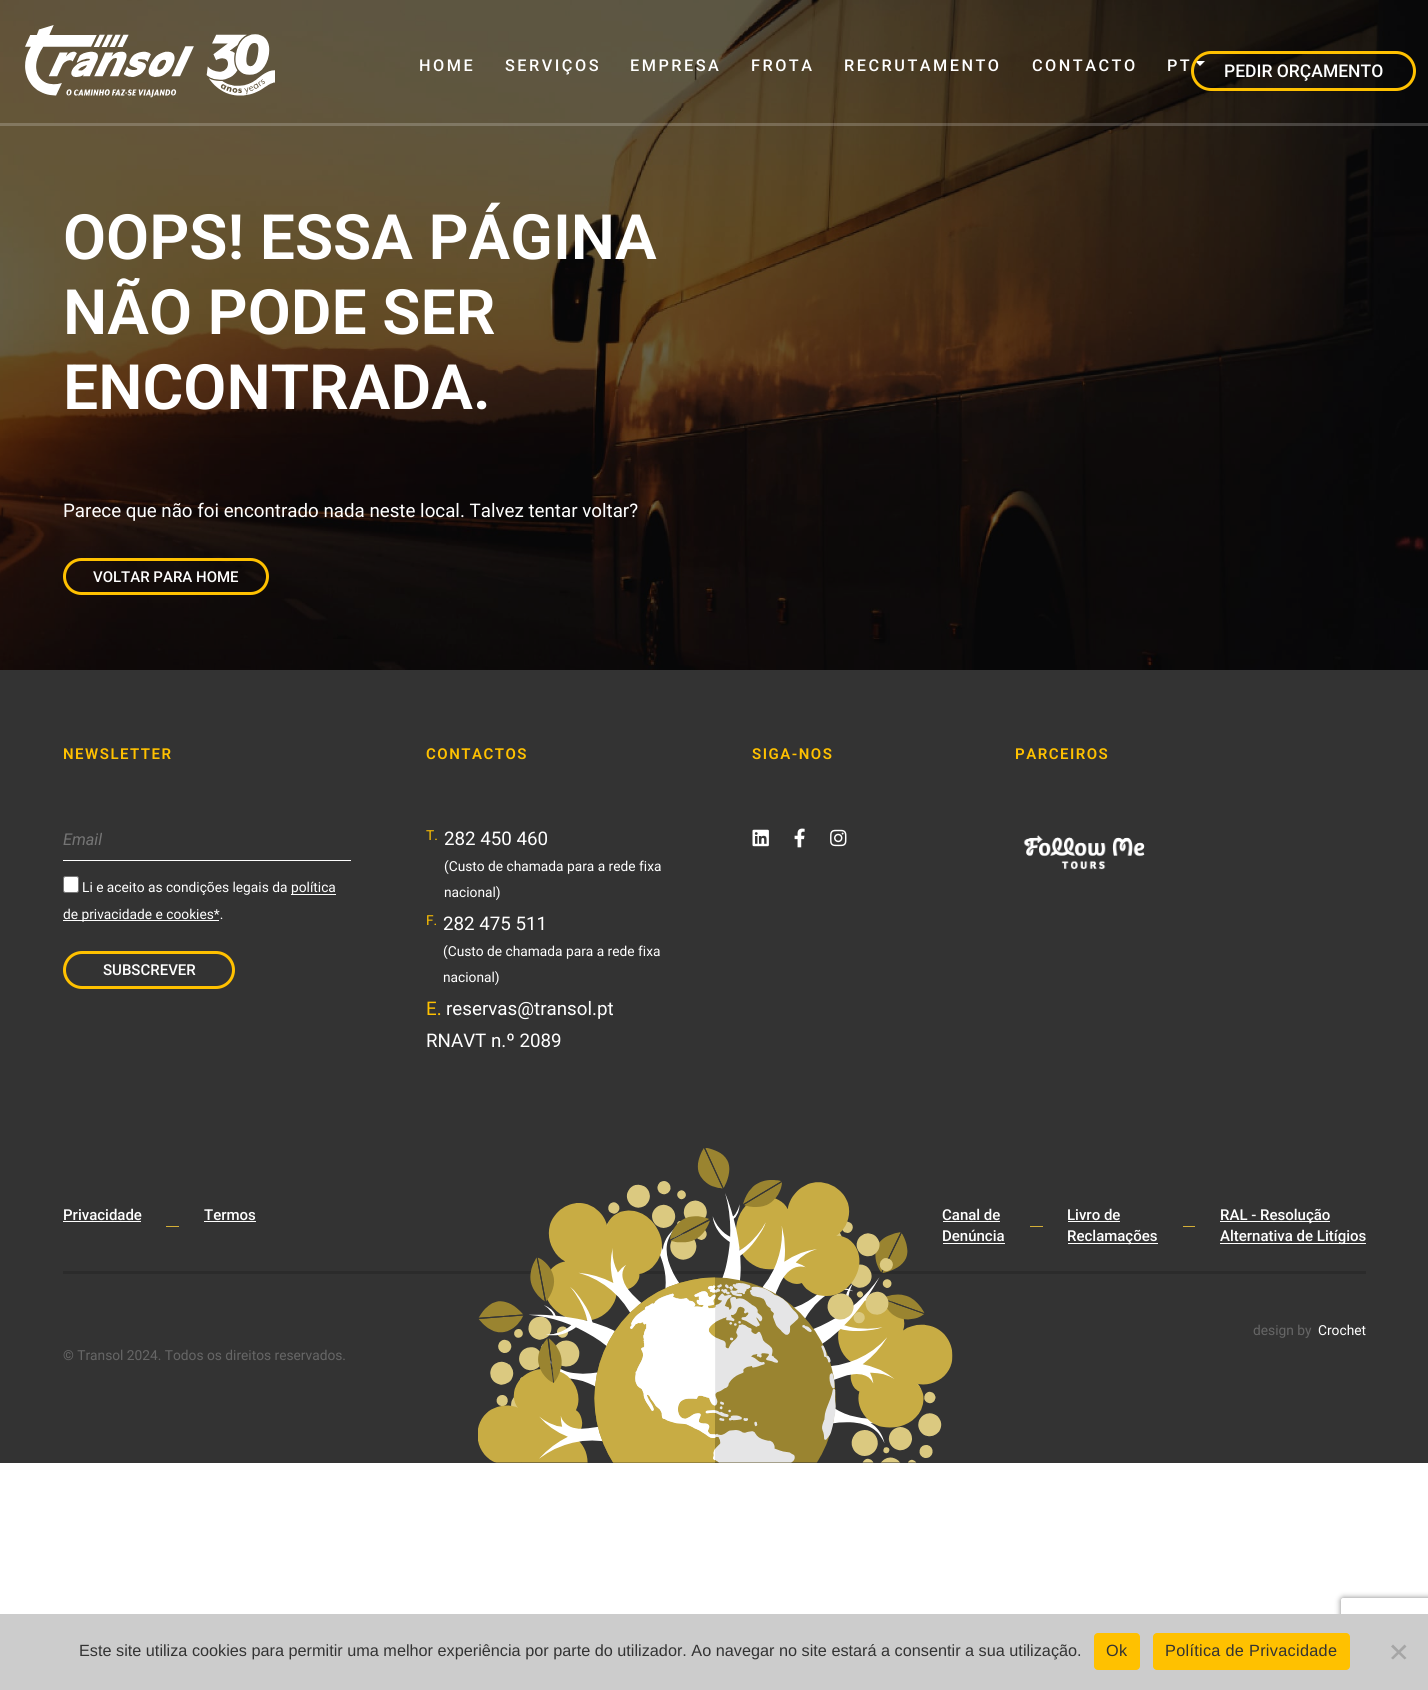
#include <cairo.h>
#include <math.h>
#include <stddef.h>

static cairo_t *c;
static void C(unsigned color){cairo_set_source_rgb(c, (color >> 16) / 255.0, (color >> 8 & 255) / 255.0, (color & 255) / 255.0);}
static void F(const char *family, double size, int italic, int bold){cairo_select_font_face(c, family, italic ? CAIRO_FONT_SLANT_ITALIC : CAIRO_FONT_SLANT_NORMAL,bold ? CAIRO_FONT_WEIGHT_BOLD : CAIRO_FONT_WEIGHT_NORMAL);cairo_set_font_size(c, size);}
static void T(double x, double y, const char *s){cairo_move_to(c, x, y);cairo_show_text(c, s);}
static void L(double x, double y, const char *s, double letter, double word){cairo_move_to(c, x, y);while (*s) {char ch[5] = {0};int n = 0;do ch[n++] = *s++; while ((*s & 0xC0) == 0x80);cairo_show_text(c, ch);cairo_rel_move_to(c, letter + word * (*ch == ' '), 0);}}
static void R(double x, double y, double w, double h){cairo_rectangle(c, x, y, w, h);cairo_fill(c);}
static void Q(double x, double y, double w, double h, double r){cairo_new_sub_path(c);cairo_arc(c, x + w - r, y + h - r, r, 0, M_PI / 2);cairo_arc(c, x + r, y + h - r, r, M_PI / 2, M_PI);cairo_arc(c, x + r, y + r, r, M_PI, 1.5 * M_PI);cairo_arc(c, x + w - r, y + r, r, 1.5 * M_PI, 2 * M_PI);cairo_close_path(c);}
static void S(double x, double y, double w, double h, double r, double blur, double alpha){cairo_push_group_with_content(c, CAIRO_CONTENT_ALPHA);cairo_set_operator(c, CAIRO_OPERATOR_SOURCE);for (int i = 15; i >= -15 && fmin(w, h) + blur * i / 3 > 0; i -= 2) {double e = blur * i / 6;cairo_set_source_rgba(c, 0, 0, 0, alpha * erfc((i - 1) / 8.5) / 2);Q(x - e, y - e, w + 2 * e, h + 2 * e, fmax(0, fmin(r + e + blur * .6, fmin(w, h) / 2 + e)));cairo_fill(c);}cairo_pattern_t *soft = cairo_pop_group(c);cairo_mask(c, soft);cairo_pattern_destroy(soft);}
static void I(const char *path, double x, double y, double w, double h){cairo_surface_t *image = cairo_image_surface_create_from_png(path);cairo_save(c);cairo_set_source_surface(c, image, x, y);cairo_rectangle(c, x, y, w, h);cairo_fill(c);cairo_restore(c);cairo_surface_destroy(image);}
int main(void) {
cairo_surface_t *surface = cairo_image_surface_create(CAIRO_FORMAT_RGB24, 1428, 1690);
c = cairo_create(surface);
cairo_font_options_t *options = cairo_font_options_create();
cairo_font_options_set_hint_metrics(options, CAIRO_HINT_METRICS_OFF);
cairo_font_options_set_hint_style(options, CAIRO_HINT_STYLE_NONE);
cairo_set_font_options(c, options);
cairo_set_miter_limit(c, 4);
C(0xffffff);
cairo_paint(c);
I("2.png",0,0,1428,670);
cairo_set_source_rgba(c,1,1,1,0.2);
R(0,123,1428,3);
I("1.png",25,25,250,73);
F("Roboto Medium",16.25,0,0);
C(0xffffff);
L(419,71,"HOME",2.5,0);
L(505,71,"SERVIÇOS",2.5,0);
L(630,71,"EMPRESA",2.5,0);
L(751,71,"FROTA",2.5,0);
L(844,71,"RECRUTAMENTO",2.5,0);
L(1032,71,"CONTACTO",2.5,0);
L(1167,71,"PT",2.5,0);
cairo_new_path(c);
cairo_move_to(c,1195,61);
cairo_line_to(c,1205,61);
cairo_line_to(c,1200,66);
cairo_close_path(c);
cairo_fill(c);
Q(1192.5,52.5,222,37,18.5);
C(0xffc100);
cairo_set_line_width(c,3);
cairo_stroke(c);
F("Roboto Medium",17.5,0,0);
C(0xffffff);
T(1224,77,"PEDIR ORÇAMENTO");
F("Roboto SemiBold",62.5,0,0);
T(63,259,"OOPS! ESSA PÁGINA");
T(63,334,"NÃO PODE SER");
T(63,409,"ENCONTRADA.");
F("Roboto",18.75,0,0);
T(63,517,"Parece que não foi encontrado nada neste local. Talvez tentar voltar?");
Q(64.5,559.5,203,34,17);
C(0xffc100);
cairo_stroke(c);
F("Roboto Medium",15,0,0);
C(0xffffff);
T(93,582,"VOLTAR PARA HOME");
C(0x333333);
R(0,670,1428,793);
F("Roboto SemiBold",15,0,0);
C(0xffc100);
L(63,759,"NEWSLETTER",1.5,0);
C(0xffffff);
R(63,860,288,1);
F("Roboto",16.25,1,0);
C(0x757575);
T(63,845,"Email");
C(0xffffff);
Q(63.5,876.5,15,16,2);
cairo_fill_preserve(c);
C(0x767676);
cairo_set_line_width(c,1);
cairo_stroke(c);
F("Roboto",13.75,0,0);
C(0xffffff);
T(82,892,"Li e aceito as condições legais da");
R(291,894,45,1);
T(291,892,"política");
R(63,920,156,1);
T(63,919,"de privacidade e cookies*.");
Q(64.5,952.5,169,35,17.5);
C(0xffc100);
cairo_set_line_width(c,3);
cairo_stroke(c);
F("Roboto Medium",15,0,0);
C(0xffffff);
T(103,975,"SUBSCREVER");
F("Roboto SemiBold",15,0,0);
C(0xffc100);
L(426,759,"CONTACTOS",1.5,0);
F("Roboto",13.75,0,0);
T(426,840,"T.");
F("Roboto",18.75,0,0);
C(0xffffff);
T(444,845,"282 450 460");
F("Roboto",13.75,0,0);
T(444,871,"(Custo de chamada para a rede fixa");
T(444,897,"nacional)");
C(0xffc100);
T(426,925,"F.");
F("Roboto",18.75,0,0);
C(0xffffff);
T(443,930,"282 475 511");
F("Roboto",13.75,0,0);
T(443,956,"(Custo de chamada para a rede fixa");
T(443,982,"nacional)");
F("Roboto",18.75,0,0);
C(0xffc100);
T(426,1015,"E.");
C(0xffffff);
T(446,1015,"reservas@transol.pt");
T(426,1047,"RNAVT n.º 2089");
F("Roboto SemiBold",15,0,0);
C(0xffc100);
L(752,759,"SIGA-NOS",1.5,0);
I("3.png",752,829,17,18);
I("4.png",794,828,11,20);
I("5.png",830,829,17,18);
L(1015,759,"PARCEIROS",1.5,0);
I("6.png",1023,835,122,35);
F("Roboto Medium",15,0,0);
C(0xffffff);
T(942,1220,"Canal de");
R(943,1221,57,1);
T(942,1241,"Denúncia");
R(943,1243,62,1);
C(0x2b2b2b);
R(63,1271,1303,3);
I("7.png",478,1148,475,315);
C(0xffffff);
T(63,1220,"Privacidade");
R(63,1221,78,1);
T(204,1220,"Termos");
R(204,1221,52,1);
C(0xd4af37);
R(166,1226,13,1);
C(0xffffff);
T(1067,1220,"Livro de");
R(1068,1221,52,1);
C(0xd4af37);
R(1030,1226,13,1);
C(0xffffff);
R(1068,1243,90,1);
T(1067,1241,"Reclamações");
R(1220,1221,110,1);
T(1220,1220,"RAL - Resolução");
C(0xd4af37);
R(1183,1226,12,1);
C(0xffffff);
R(1220,1243,146,1);
T(1220,1241,"Alternativa de Litígios");
F("Roboto",13.75,0,0);
C(0x666666);
T(1253,1335,"design by");
C(0xffffff);
T(1318,1335,"Crochet");
C(0x666666);
T(63,1360,"© Transol 2024. Todos os direitos reservados.");
cairo_save(c);
cairo_set_fill_rule(c,CAIRO_FILL_RULE_EVEN_ODD);
cairo_new_path(c);
cairo_move_to(c,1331,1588);
cairo_line_to(c,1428,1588);
cairo_line_to(c,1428,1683);
cairo_line_to(c,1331,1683);
cairo_close_path(c);
cairo_move_to(c,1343.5,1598);
cairo_line_to(c,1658.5,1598);
cairo_curve_to(c,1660,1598,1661,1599,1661,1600.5);
cairo_line_to(c,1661,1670.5);
cairo_curve_to(c,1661,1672,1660,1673,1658.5,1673);
cairo_line_to(c,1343.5,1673);
cairo_curve_to(c,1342,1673,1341,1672,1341,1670.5);
cairo_line_to(c,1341,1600.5);
cairo_curve_to(c,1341,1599,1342,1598,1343.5,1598);
cairo_close_path(c);
cairo_clip(c);
C(0x808080);
S(1341,1598,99,75,2.5,3,1);
cairo_restore(c);
C(0xcccccc);
R(0,1614,1428,76);
F("Liberation Sans",16.25,0,0);
C(0x333333);
T(79,1656,"Este site utiliza cookies para permitir uma melhor experiência por parte do utilizador. Ao navegar no site estará a consentir a sua utilização.");
C(0xffc100);
Q(1094,1633,46,37,4);
cairo_fill(c);
C(0x333333);
L(1106,1656,"Ok",.3,0);
C(0xffc100);
Q(1153,1633,197,37,4);
cairo_fill(c);
C(0x333333);
L(1165,1656,"Política de Privacidade",.3,0);
C(0xa6a6a6);
cairo_new_path(c);
cairo_move_to(c,1404.5,1644.5);
cairo_line_to(c,1406.5,1646.5);
cairo_line_to(c,1393,1659.5);
cairo_line_to(c,1391,1658);
cairo_close_path(c);
cairo_fill(c);
cairo_new_path(c);
cairo_move_to(c,1391,1646.5);
cairo_line_to(c,1393,1644.5);
cairo_line_to(c,1406.5,1658);
cairo_line_to(c,1404.5,1659.5);
cairo_close_path(c);
cairo_fill(c);
cairo_surface_write_to_png(surface, "o.png");
cairo_font_options_destroy(options);
cairo_destroy(c);
cairo_surface_destroy(surface);
return 0;
}
